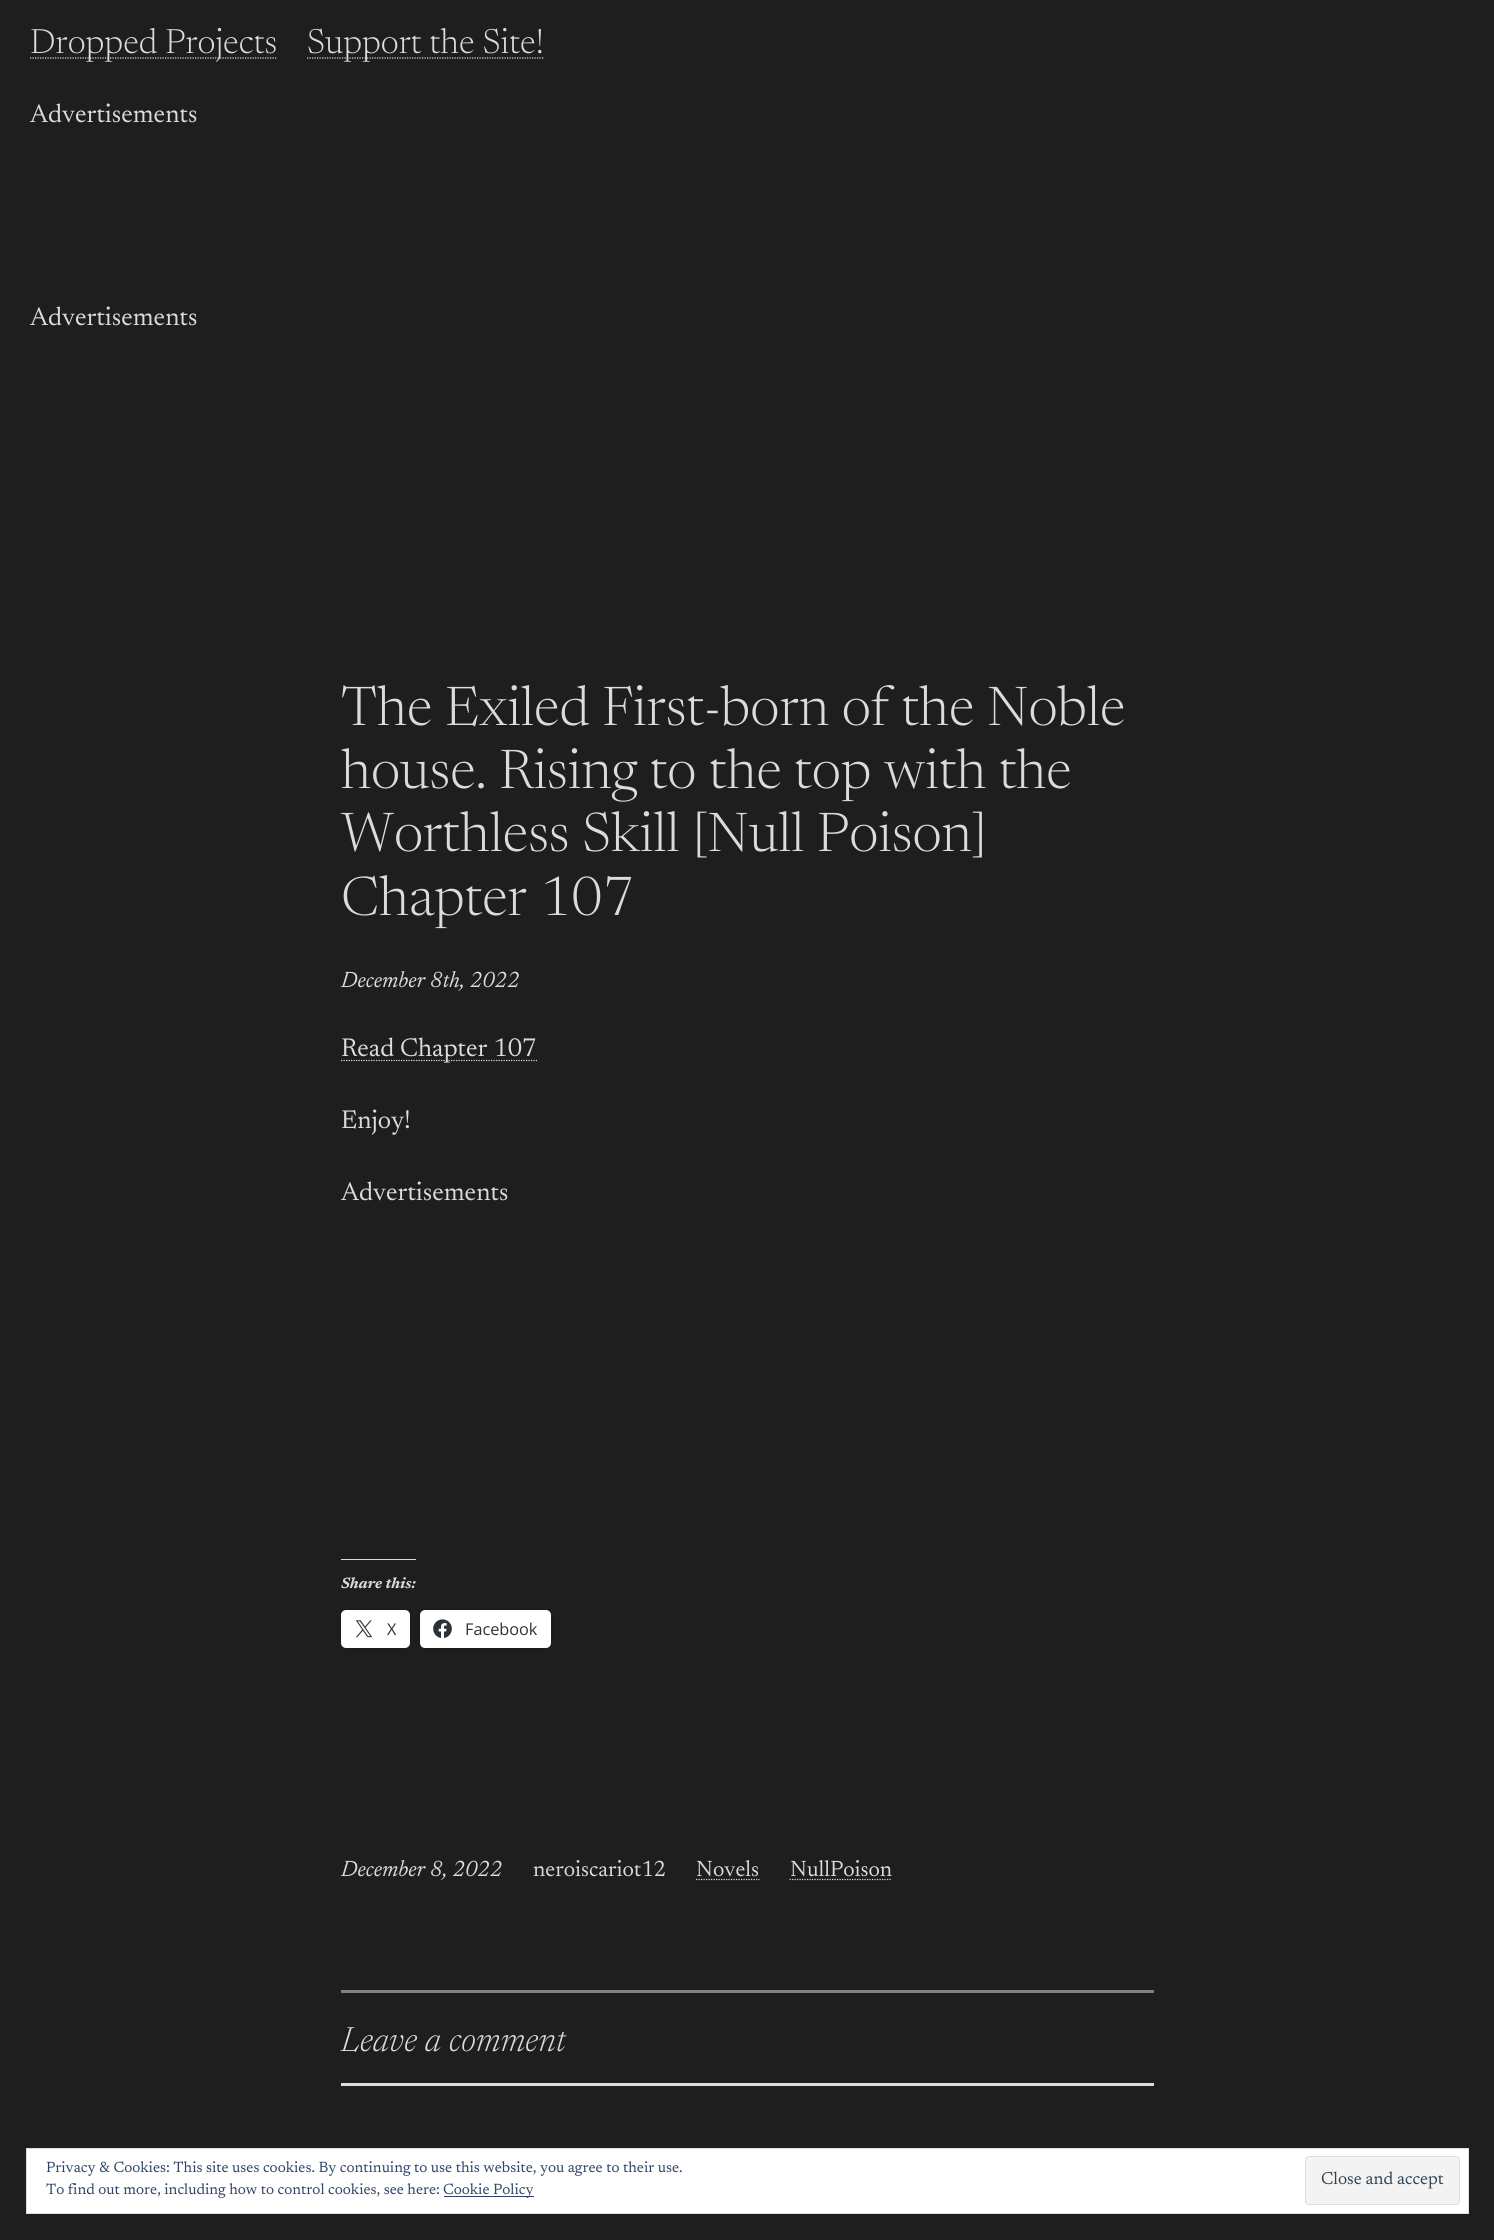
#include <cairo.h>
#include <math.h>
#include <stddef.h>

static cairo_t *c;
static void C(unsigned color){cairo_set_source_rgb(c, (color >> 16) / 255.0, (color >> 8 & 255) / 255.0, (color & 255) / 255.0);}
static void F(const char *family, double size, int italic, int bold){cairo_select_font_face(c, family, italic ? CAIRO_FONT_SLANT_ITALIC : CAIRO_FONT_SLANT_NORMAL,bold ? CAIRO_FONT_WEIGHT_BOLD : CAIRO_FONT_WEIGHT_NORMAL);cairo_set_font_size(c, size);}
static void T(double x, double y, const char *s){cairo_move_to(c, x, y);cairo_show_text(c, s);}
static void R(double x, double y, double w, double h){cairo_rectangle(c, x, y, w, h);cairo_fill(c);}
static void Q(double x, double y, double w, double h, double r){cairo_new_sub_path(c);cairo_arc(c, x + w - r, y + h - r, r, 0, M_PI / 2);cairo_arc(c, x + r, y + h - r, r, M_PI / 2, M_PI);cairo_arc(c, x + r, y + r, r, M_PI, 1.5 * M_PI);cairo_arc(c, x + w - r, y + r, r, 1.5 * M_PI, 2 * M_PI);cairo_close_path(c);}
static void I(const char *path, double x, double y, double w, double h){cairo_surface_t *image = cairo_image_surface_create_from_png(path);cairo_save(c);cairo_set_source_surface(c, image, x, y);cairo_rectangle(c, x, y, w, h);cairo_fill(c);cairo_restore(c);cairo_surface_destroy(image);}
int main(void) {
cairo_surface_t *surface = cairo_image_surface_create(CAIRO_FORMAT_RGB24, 1494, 2240);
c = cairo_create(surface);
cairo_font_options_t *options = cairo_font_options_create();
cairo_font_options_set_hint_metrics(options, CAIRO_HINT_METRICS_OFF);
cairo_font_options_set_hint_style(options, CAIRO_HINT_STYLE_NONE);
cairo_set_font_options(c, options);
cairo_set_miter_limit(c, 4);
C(0x1e1e1e);
cairo_paint(c);
cairo_new_path(c);
cairo_move_to(c,30,58);
cairo_line_to(c,277,58);
C(0xdbdbdb);
cairo_set_line_width(c,1.2);
cairo_set_dash(c,(double[]){1.25,1.25},2,0);
cairo_stroke(c);
F("Newsreader Light",35,0,0);
T(30,53,"Dropped Projects");
cairo_new_path(c);
cairo_move_to(c,307,58);
cairo_line_to(c,544,58);
cairo_stroke(c);
T(307,53,"Support the Site!");
F("Newsreader",26,0,0);
T(30,122,"Advertisements");
T(30,325,"Advertisements");
F("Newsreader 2 Light",55,0,0);
T(341,725,"The Exiled First-born of the Noble");
T(341,788,"house. Rising to the top with the");
T(341,851,"Worthless Skill [Null Poison]");
T(341,915,"Chapter 107");
F("Newsreader",22.5,1,0);
T(341,987,"December 8th, 2022");
cairo_new_path(c);
cairo_move_to(c,341,1060.5);
cairo_line_to(c,537,1060.5);
cairo_stroke(c);
F("Newsreader",26,0,0);
T(341,1056,"Read Chapter 107");
T(341,1128,"Enjoy!");
T(341,1200,"Advertisements");
C(0xdcdcde);
R(341,1559,75,1);
F("Newsreader",15,1,1);
C(0xdbdbdb);
T(341,1588,"Share this:");
Q(340.5,1609.5,70,39,5.5);
C(0x1a1a1a);
cairo_set_line_width(c,1);
cairo_set_dash(c,NULL,0,0);
cairo_stroke(c);
C(0xffffff);
Q(341,1610,69,38,5);
cairo_fill(c);
I("1.png",355,1620,18,18);
F("Open Sans",16.25,0,0);
C(0x2c3338);
T(387,1635,"X");
Q(419.5,1609.5,133,39,5.5);
C(0x1a1a1a);
cairo_stroke(c);
C(0xffffff);
Q(420,1610,131,38,5);
cairo_fill(c);
I("2.png",433,1619,19,19);
C(0x2c3338);
T(465,1635,"Facebook");
F("Newsreader",22.5,1,0);
C(0xdbdbdb);
T(341,1876,"December 8, 2022");
F("Newsreader 2",22.5,0,0);
T(533,1876,"neroiscariot12");
T(696,1876,"Novels");
cairo_new_path(c);
cairo_move_to(c,696,1879.5);
cairo_line_to(c,759.5,1879.5);
cairo_set_line_width(c,1.2);
cairo_set_dash(c,(double[]){1.25,1.25},2,0);
cairo_stroke(c);
T(790,1876,"NullPoison");
cairo_new_path(c);
cairo_move_to(c,789.5,1879.5);
cairo_line_to(c,892,1879.5);
cairo_stroke(c);
C(0x808080);
R(341,1990,813,3);
F("Newsreader Light",35,1,0);
C(0xdbdbdb);
T(341,2051,"Leave a comment");
C(0xdcdcde);
R(341,2083,813,3);
C(0xffffff);
cairo_rectangle(c,26.5,2148.5,1442,65);
cairo_fill_preserve(c);
C(0xdedede);
cairo_set_line_width(c,1);
cairo_set_dash(c,NULL,0,0);
cairo_stroke(c);
F("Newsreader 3",15,0,0);
C(0x2e4467);
T(46,2172,"Privacy & Cookies: This site uses cookies. By continuing to use this website, you agree to their use.");
C(0xf3f3f3);
Q(1305.5,2156.5,154,48,3.5);
cairo_fill_preserve(c);
C(0xdedede);
cairo_stroke(c);
F("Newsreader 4",17.5,0,0);
C(0x2e4453);
T(1321,2184,"Close and accept");
F("Newsreader 3",15,0,0);
C(0x2e4467);
T(46,2194,"To find out more, including how to control cookies, see here:");
R(444,2196,90,1);
T(443,2194,"Cookie Policy");
cairo_surface_write_to_png(surface, "o.png");
cairo_font_options_destroy(options);
cairo_destroy(c);
cairo_surface_destroy(surface);
return 0;
}
